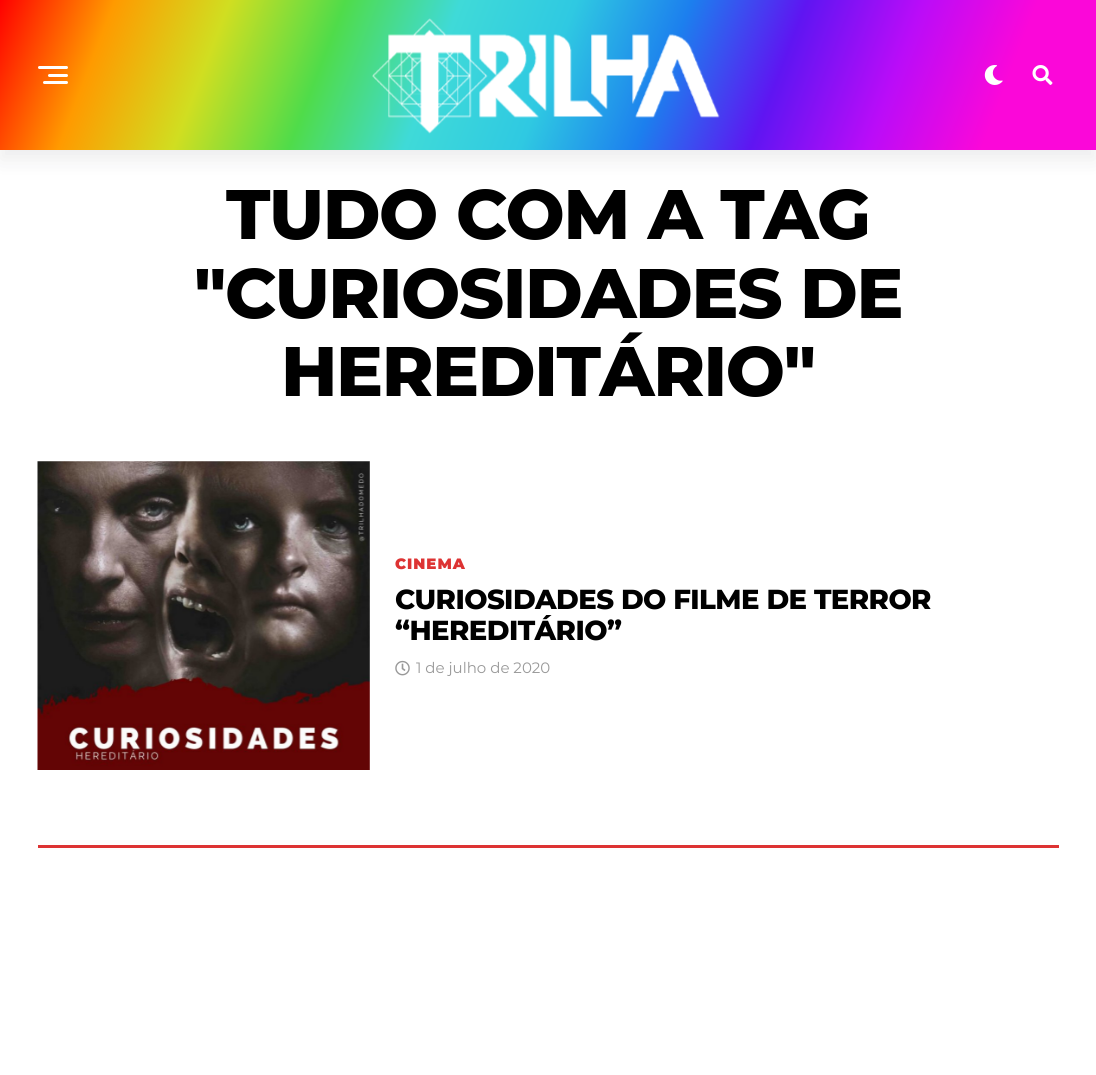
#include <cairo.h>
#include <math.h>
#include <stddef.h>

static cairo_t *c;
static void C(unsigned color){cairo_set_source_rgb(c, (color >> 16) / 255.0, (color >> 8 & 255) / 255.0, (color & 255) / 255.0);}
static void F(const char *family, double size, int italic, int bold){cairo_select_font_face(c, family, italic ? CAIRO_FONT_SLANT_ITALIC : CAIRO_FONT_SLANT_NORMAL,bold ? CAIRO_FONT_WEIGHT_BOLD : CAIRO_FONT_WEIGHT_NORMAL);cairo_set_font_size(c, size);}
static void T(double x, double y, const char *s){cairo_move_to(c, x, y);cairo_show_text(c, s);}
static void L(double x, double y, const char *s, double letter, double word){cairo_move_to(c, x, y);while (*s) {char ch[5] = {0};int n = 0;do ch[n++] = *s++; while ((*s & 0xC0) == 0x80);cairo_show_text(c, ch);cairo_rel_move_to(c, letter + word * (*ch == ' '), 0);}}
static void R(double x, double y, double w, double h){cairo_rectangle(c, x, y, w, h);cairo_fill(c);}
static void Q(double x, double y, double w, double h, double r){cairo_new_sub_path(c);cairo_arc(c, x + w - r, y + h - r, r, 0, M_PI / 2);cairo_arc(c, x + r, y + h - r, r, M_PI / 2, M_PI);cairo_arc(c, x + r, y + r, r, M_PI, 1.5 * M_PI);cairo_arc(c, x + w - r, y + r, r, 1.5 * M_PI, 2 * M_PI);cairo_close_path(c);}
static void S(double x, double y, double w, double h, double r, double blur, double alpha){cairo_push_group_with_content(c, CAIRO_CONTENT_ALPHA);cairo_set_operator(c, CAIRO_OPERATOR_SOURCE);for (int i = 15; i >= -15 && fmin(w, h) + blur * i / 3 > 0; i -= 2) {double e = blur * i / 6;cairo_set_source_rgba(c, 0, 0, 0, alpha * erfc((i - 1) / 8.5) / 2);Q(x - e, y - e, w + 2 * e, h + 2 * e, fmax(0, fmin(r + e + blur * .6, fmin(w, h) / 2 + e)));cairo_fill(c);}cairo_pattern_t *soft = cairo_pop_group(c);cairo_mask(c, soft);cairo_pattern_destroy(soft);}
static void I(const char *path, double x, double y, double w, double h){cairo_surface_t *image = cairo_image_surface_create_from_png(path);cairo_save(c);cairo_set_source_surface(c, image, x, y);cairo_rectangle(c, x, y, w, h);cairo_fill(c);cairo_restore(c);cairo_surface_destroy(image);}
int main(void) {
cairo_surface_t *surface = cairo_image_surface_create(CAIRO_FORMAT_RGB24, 1096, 1075);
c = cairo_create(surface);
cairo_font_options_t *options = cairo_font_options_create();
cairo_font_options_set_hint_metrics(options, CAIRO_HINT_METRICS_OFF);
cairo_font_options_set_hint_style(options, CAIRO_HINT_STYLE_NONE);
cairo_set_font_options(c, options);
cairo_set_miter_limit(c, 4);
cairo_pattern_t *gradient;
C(0xffffff);
cairo_paint(c);
C(0x15151e);
S(0,10,1096,150,0,10,.08);
gradient = cairo_pattern_create_linear(45,-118,1051,268);
cairo_pattern_add_color_stop_rgba(gradient,0,1,0,0,1);
cairo_pattern_add_color_stop_rgba(gradient,.1,1,0.604,0,1);
cairo_pattern_add_color_stop_rgba(gradient,.2,0.816,0.871,0.129,1);
cairo_pattern_add_color_stop_rgba(gradient,.3,0.31,0.863,0.29,1);
cairo_pattern_add_color_stop_rgba(gradient,.4,0.247,0.855,0.847,1);
cairo_pattern_add_color_stop_rgba(gradient,.5,0.184,0.788,0.886,1);
cairo_pattern_add_color_stop_rgba(gradient,.6,0.11,0.498,0.933,1);
cairo_pattern_add_color_stop_rgba(gradient,.7,0.373,0.082,0.949,1);
cairo_pattern_add_color_stop_rgba(gradient,.8,0.729,0.047,0.973,1);
cairo_pattern_add_color_stop_rgba(gradient,.9,0.984,0.027,0.851,1);
cairo_set_source(c,gradient);
cairo_pattern_destroy(gradient);
R(0,0,1096,150);
C(0xffffff);
Q(38,66,30,3,1.5);
cairo_fill(c);
Q(48,74,20,3,1.5);
cairo_fill(c);
Q(43,81,25,3,1.5);
cairo_fill(c);
I("1.png",372,18,348,116);
I("2.png",984,65,19,20);
I("3.png",1032,65,21,20);
F("Montserrat ExtraBold",70,0,0);
C(0x000000);
L(226,239,"TUDO COM A TAG",-1.4,0);
L(194,318,"\"CURIOSIDADES DE",-1.4,0);
L(281,396,"HEREDITÁRIO\"",-1.4,0);
I("4.png",37,461,333,309);
F("Montserrat Black",15,0,0);
C(0xdd3333);
L(395,569,"CINEMA",1,0);
F("Montserrat ExtraBold",27.5,0,0);
C(0x000000);
L(395,609,"CURIOSIDADES DO FILME DE TERROR",-.55,0);
L(395,640,"“HEREDITÁRIO”",-.55,0);
I("5.png",395,660,15,16);
F("Montserrat",15,0,0);
C(0x999999);
T(416,673,"1 de julho de 2020");
C(0xdd3333);
R(38,845,1021,3);
cairo_surface_write_to_png(surface, "o.png");
cairo_font_options_destroy(options);
cairo_destroy(c);
cairo_surface_destroy(surface);
return 0;
}
